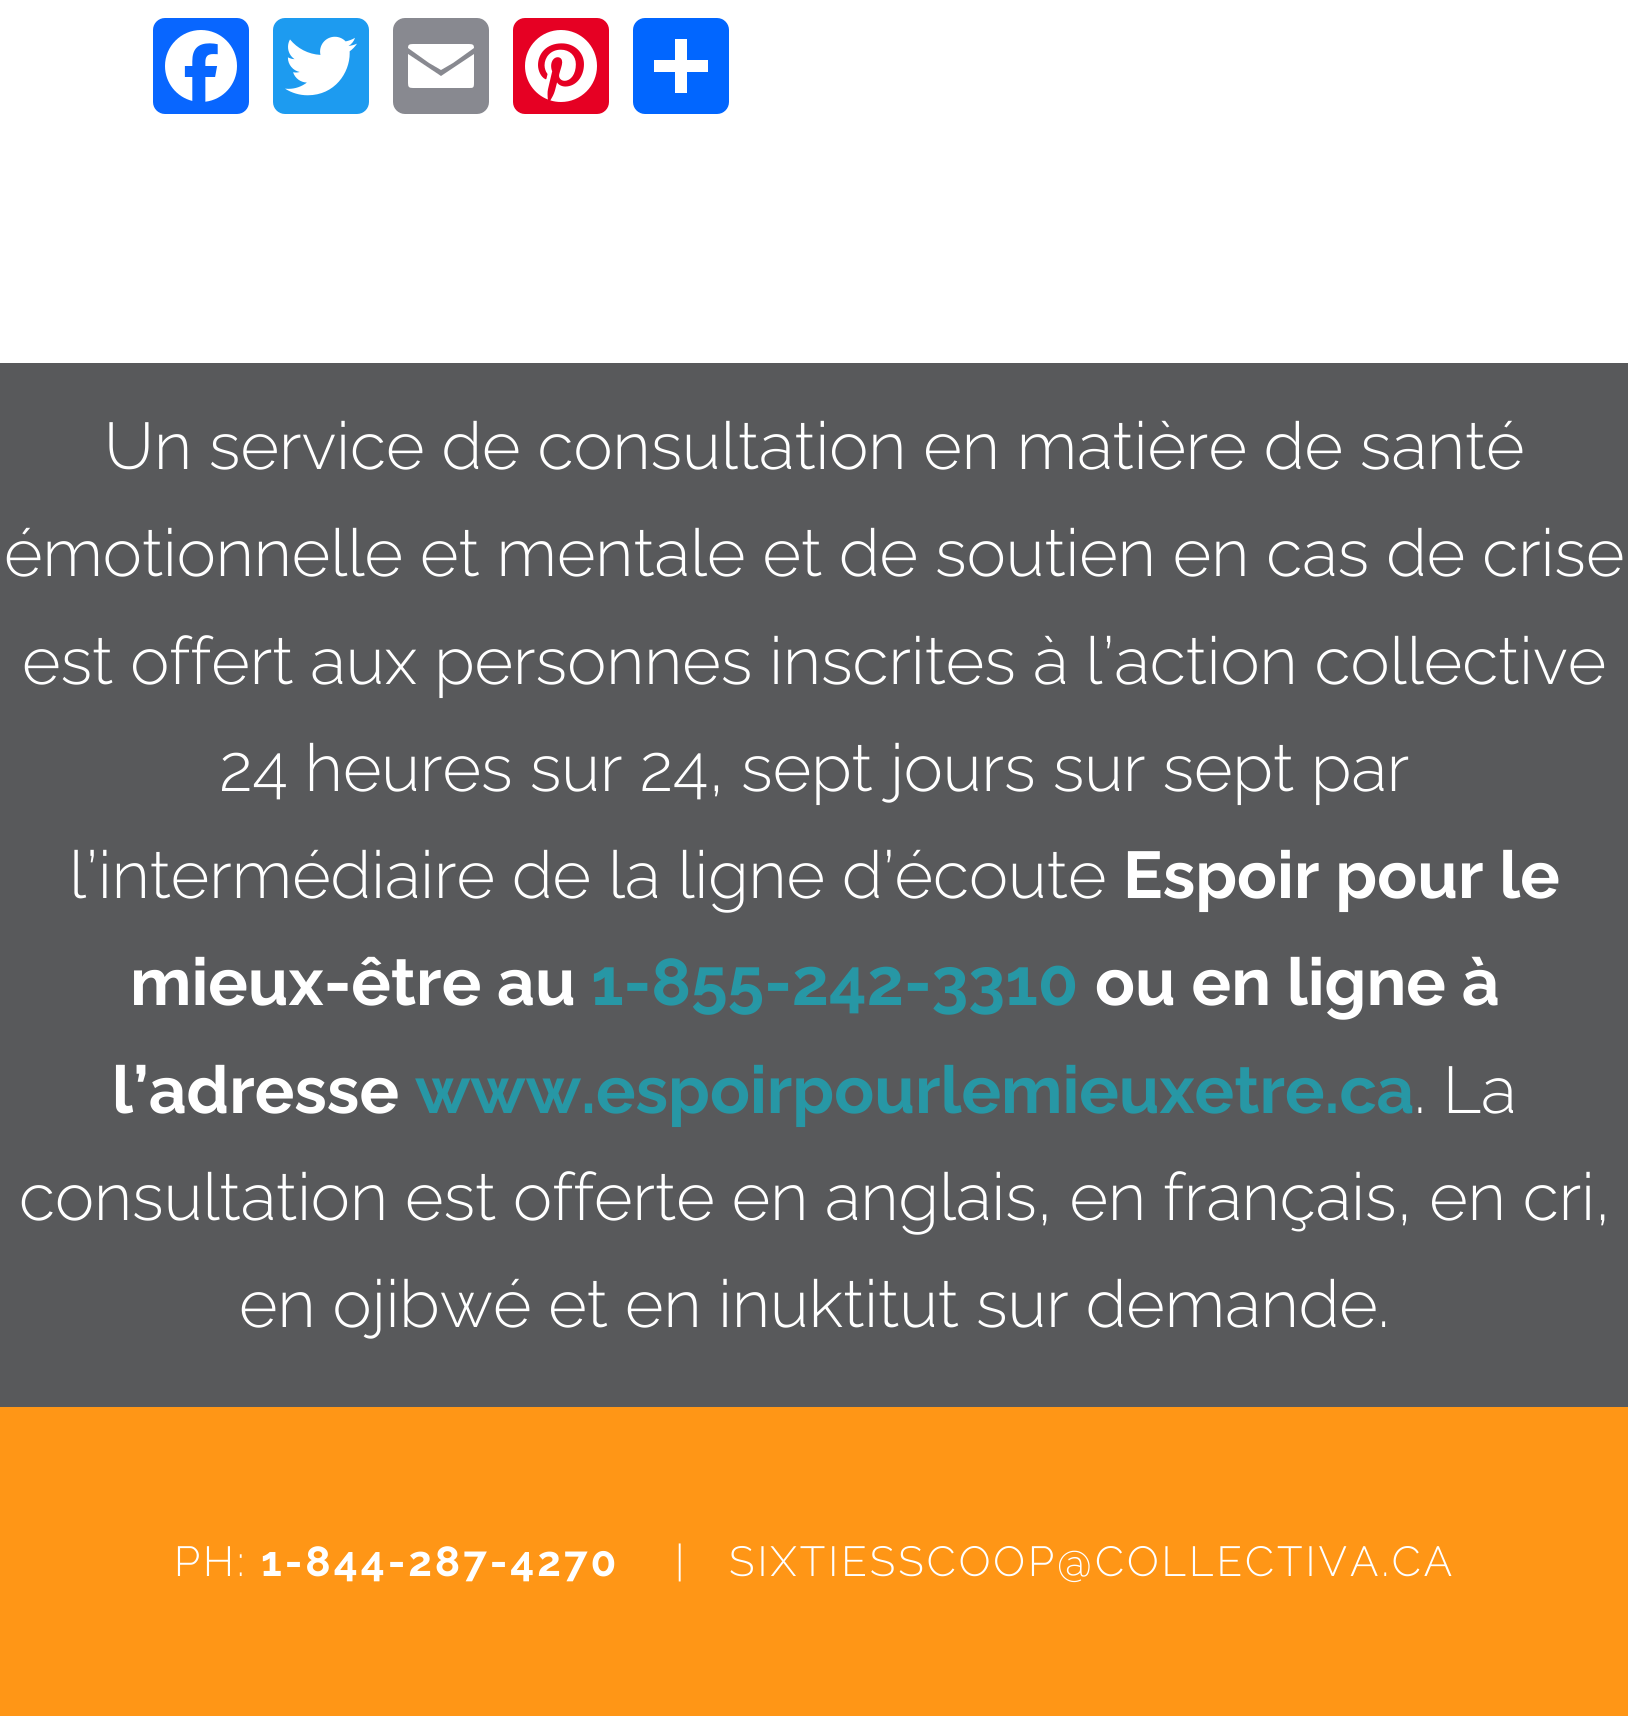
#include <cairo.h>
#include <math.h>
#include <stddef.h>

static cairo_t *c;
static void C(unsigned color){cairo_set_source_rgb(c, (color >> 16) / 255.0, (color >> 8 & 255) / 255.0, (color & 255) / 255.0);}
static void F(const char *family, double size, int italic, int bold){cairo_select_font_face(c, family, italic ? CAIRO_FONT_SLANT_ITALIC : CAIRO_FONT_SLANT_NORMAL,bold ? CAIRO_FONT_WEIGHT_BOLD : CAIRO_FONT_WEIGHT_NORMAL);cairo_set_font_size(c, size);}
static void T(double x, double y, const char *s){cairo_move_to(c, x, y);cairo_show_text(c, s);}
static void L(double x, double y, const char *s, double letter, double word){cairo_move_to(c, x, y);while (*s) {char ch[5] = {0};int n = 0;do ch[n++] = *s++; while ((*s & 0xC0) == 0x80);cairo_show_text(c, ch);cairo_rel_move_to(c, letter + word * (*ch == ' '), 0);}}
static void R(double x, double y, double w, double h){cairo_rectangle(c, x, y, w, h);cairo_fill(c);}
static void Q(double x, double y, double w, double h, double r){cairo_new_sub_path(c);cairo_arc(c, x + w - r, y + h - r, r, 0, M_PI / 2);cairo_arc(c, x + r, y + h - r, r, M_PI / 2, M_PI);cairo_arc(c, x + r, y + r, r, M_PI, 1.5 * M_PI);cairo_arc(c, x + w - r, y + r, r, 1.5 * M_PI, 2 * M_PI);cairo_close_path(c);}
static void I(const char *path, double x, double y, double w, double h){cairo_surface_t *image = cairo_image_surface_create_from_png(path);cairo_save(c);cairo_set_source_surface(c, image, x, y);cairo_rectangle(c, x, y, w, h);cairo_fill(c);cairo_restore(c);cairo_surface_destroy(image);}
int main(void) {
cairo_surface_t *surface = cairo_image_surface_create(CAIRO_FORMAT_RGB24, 1628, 1716);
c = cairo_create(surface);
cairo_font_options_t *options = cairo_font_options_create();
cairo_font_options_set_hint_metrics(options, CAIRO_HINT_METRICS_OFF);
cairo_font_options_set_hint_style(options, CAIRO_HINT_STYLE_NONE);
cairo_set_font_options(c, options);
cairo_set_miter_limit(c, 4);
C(0xff9616);
cairo_paint(c);
C(0xffffff);
R(0,0,1628,363);
C(0x0866ff);
Q(153,18,96,96,12);
cairo_fill(c);
I("1.png",165,30,72,72);
C(0x1d9bf0);
Q(273,18,96,96,12);
cairo_fill(c);
I("2.png",285,36,72,60);
C(0x888990);
Q(393,18,96,96,12);
cairo_fill(c);
C(0xffffff);
cairo_new_path(c);
cairo_move_to(c,474,83);
cairo_line_to(c,474,54);
cairo_line_to(c,441,76);
cairo_line_to(c,408,54);
cairo_line_to(c,408,83);
cairo_curve_to(c,408,87,409,88,413,88);
cairo_line_to(c,469,88);
cairo_curve_to(c,473,88,474,88,474,83);
cairo_move_to(c,474,48);
cairo_curve_to(c,474,45,473,44,469,44);
cairo_line_to(c,413,44);
cairo_curve_to(c,409,44,408,45,408,48);
cairo_line_to(c,429,63);
cairo_line_to(c,441,70);
cairo_line_to(c,453,63);
cairo_close_path(c);
cairo_fill(c);
C(0xe60023);
Q(513,18,96,96,12);
cairo_fill(c);
I("3.png",525,30,72,72);
C(0x0166ff);
Q(633,18,96,96,12);
cairo_fill(c);
C(0xffffff);
R(675,39,12,54);
R(654,60,54,12);
C(0x58595b);
R(0,363,1628,1044);
F("Raleway Light",66,0,0);
C(0xffffff);
T(104,469,"Un service de consultation en matière de santé");
T(4,576,"émotionnelle et mentale et de soutien en cas de crise");
T(22,684,"est offert aux personnes inscrites à l’action collective");
T(219,791,"24 heures sur 24, sept jours sur sept par");
T(69,898,"l’intermédiaire de la ligne d’écoute");
F("Raleway",66,0,1);
T(1123,898,"Espoir pour le");
T(130,1005,"mieux-être au");
C(0x2797a5);
T(591,1005,"1-855-242-3310");
C(0xffffff);
T(1095,1005,"ou en ligne à");
T(112,1113,"l’adresse");
C(0x2797a5);
T(415,1113,"www.espoirpourlemieuxetre.ca");
F("Raleway Light",66,0,0);
C(0xffffff);
T(1414,1113,". La");
T(19,1220,"consultation est offerte en anglais, en français, en cri,");
T(239,1327,"en ojibwé et en inuktitut sur demande.");
F("Raleway Light",42,0,0);
L(174,1576,"PH:",3,0);
F("Raleway",42,0,1);
L(261,1576,"1-844-287-4270",3,0);
F("Raleway Light",42,0,0);
L(675,1576,"|",3,0);
L(729,1576,"SIXTIESSCOOP@COLLECTIVA.CA",3,0);
cairo_surface_write_to_png(surface, "o.png");
cairo_font_options_destroy(options);
cairo_destroy(c);
cairo_surface_destroy(surface);
return 0;
}
